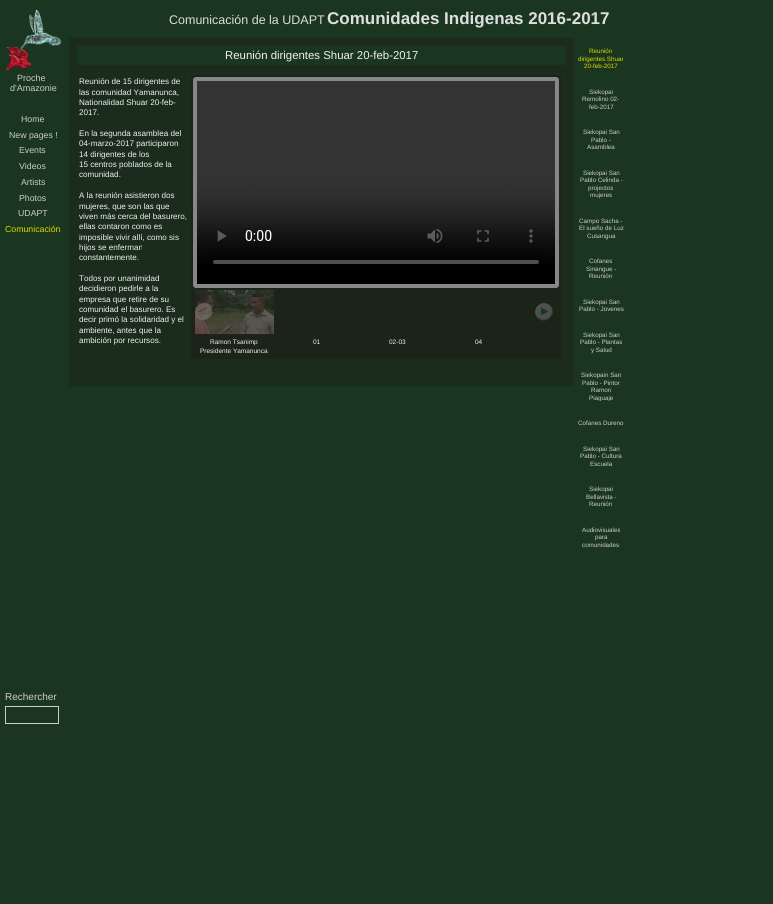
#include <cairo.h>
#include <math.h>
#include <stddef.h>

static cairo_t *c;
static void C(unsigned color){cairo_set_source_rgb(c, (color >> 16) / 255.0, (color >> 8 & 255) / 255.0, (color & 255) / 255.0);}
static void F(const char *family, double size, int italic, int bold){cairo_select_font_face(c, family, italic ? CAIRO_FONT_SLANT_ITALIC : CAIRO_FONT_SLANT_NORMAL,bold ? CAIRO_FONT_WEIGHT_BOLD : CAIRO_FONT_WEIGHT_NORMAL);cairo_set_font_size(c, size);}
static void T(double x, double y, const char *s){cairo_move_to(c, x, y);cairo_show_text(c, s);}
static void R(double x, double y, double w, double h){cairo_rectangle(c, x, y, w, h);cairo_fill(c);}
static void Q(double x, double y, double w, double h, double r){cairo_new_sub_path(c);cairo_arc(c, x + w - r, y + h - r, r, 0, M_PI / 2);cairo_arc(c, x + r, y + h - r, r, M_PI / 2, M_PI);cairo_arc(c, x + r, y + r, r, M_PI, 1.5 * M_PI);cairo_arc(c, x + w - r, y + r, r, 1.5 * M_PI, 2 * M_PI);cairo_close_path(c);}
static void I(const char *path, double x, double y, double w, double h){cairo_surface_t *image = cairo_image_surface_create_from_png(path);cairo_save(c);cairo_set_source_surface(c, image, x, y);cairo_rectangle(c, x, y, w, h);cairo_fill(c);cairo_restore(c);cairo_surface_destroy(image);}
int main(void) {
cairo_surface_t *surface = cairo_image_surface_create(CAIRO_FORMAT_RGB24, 773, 904);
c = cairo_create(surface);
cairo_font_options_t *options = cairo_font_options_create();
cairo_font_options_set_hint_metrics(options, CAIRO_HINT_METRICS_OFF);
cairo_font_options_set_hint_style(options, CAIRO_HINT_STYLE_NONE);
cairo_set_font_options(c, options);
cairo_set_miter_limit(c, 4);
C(0x1a3620);
cairo_paint(c);
I("1.png",6,9,56,62);
F("Liberation Sans",12.5,0,0);
C(0xdedede);
T(169,24,"Comunicación de la UDAPT");
F("Liberation Sans",17,0,1);
T(327,24,"Comunidades Indigenas 2016-2017");
C(0x1b2b1c);
R(69,38,505,348);
C(0x1a3620);
R(77,46,489,19);
F("Liberation Sans",11.4,0,0);
C(0xf0f0f0);
T(225,59,"Reunión dirigentes Shuar 20-feb-2017");
F("Liberation Sans",8.1,0,0);
T(79,84,"Reunión de 15 dirigentes de");
T(79,95,"las comunidad Yamanunca,");
T(79,105,"Nationalidad Shuar 20-feb-");
T(79,115,"2017.");
T(79,136,"En la segunda asamblea del");
T(79,146,"04-marzo-2017 participaron");
T(79,157,"14 dirigentes de los");
T(79,167,"15 centros poblados de la");
T(79,177,"comunidad.");
T(79,198,"A la reunión asistieron dos");
T(79,209,"mujeres, que son las que");
T(79,219,"viven más cerca del basurero,");
T(79,229,"ellas contaron como es");
T(79,240,"imposible vivir allí, como sis");
T(79,250,"hijos se enferman");
T(79,260,"constantemente.");
T(79,281,"Todos por unanimidad");
T(79,291,"decidieron pedirle a la");
T(79,302,"empresa que retire de su");
T(79,312,"comunidad el basurero. Es");
T(79,322,"decir primó la solidaridad y el");
T(79,333,"ambiente, antes que la");
T(79,343,"ambición por recursos.");
C(0x1c2319);
R(191,75,370,284);
C(0x000000);
Q(193,77,366,211,3);
cairo_fill(c);
Q(195,79,362,207,1);
cairo_set_source_rgba(c,0.706,0.706,0.706,0.75);
cairo_set_line_width(c,4);
cairo_stroke(c);
I("2.png",197,81,358,183);
I("5.png",195,290,79,44);
I("3.png",195,303,18,18);
I("4.png",535,303,18,18);
F("Liberation Sans",6.5,0,0);
C(0xf0f0f0);
T(210,344,"Ramon Tsanimp");
T(200,353,"Presidente Yamanunca");
T(313,344,"01");
T(389,344,"02-03");
T(475,344,"04");
F("Liberation Sans",6.25,0,0);
C(0xdddd00);
T(589,53,"Reunión");
T(578,61,"dirigentes Shuar");
T(584,68,"20-feb-2017");
C(0xcccccc);
T(589,94,"Siekopai");
T(582,101,"Remolino 02-");
T(589,109,"feb-2017");
T(583,134,"Siekopai San");
T(591,142,"Pablo -");
T(587,149,"Asamblea");
T(583,175,"Siekopai San");
T(580,182,"Pablo Celinda -");
T(588,190,"projectos");
T(590,197,"mujeres");
T(579,223,"Campo Sacha -");
T(579,230,"El sueño de Luz");
T(587,238,"Cusangua");
T(589,263,"Cofanes");
T(586,271,"Sinangue -");
T(589,278,"Reunión");
T(583,304,"Siekopai San");
T(579,311,"Pablo - Jovenes");
T(583,337,"Siekopai San");
T(580,344,"Pablo - Plantas");
T(591,352,"y Salud");
T(581,377,"Siekopain San");
T(582,385,"Pablo - Pintor");
T(591,392,"Ramon");
cairo_save(c);
cairo_rectangle(c,578,371,46,30);
cairo_clip(c);
T(589,400,"Piaguaje");
cairo_restore(c);
T(578,425,"Cofanes Dureno");
T(583,451,"Siekopai San");
T(580,458,"Pablo - Cultura");
T(590,466,"Escuela");
T(589,491,"Siekopai");
T(586,499,"Bellavista -");
T(589,506,"Reunión");
T(582,532,"Audiovisuales");
T(595,539,"para");
T(582,547,"comunidades");
F("Liberation Sans",9,0,0);
T(17,81,"Proche");
T(10,91,"d'Amazonie");
F("Liberation Sans",8.75,0,0);
T(21,122,"Home");
T(9,138,"New pages !");
T(19,153,"Events");
T(19,169,"Videos");
T(21,185,"Artists");
T(19,201,"Photos");
T(18,216,"UDAPT");
C(0xdddd00);
T(5,232,"Comunicación");
F("Liberation Sans",10,0,0);
C(0xcccccc);
T(5,700,"Rechercher");
cairo_rectangle(c,5.5,706.5,53,17);
cairo_set_line_width(c,1);
cairo_stroke(c);
cairo_surface_write_to_png(surface, "o.png");
cairo_font_options_destroy(options);
cairo_destroy(c);
cairo_surface_destroy(surface);
return 0;
}
